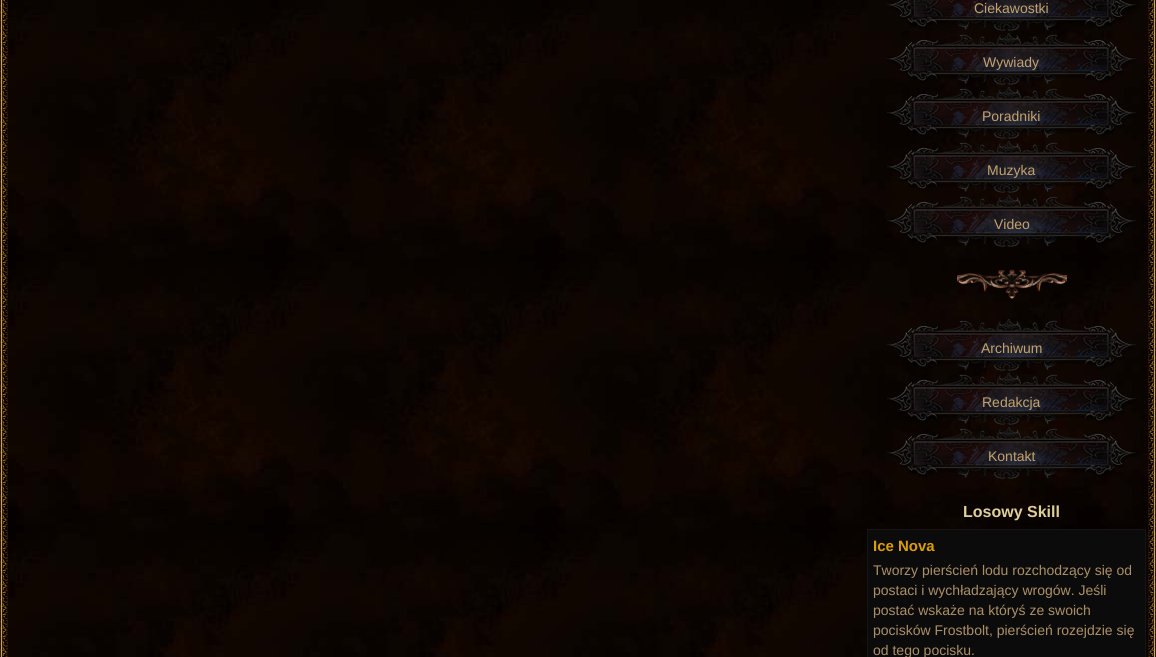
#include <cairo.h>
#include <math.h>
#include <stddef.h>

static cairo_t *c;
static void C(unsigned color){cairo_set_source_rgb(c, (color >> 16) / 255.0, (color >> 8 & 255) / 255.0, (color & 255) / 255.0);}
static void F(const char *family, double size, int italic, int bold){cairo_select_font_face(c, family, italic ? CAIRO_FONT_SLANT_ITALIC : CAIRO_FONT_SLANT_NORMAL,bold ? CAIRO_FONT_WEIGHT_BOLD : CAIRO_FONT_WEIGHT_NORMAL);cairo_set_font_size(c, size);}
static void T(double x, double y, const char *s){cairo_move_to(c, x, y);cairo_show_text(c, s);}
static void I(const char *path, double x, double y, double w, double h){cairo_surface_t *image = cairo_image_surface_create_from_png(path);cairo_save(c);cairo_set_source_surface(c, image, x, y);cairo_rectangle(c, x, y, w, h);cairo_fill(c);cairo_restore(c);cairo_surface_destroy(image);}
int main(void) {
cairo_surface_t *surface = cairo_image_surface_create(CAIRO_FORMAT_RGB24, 1156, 657);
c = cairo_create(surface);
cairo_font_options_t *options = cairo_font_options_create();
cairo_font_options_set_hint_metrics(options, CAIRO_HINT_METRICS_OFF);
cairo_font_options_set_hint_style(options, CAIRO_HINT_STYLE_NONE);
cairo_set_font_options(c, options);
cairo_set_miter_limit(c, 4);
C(0xffffff);
cairo_paint(c);
I("1.png",0,0,1156,657);
I("2.png",887,0,249,31);
F("Liberation Sans",14,0,0);
C(0xc5a26a);
T(974,13,"Ciekawostki");
I("3.png",887,33,249,52);
T(983,67,"Wywiady");
I("4.png",887,87,249,53);
T(982,121,"Poradniki");
I("5.png",887,141,249,53);
T(987,175,"Muzyka");
I("6.png",887,195,249,52);
T(994,229,"Video");
I("7.png",957,269,110,30);
I("8.png",887,319,249,52);
T(981,353,"Archiwum");
I("9.png",887,373,249,53);
T(982,407,"Redakcja");
I("10.png",887,427,249,53);
T(988,461,"Kontakt");
F("Liberation Sans",16,0,1);
C(0xdfcf99);
T(963,517,"Losowy Skill");
C(0x0c0b0b);
cairo_rectangle(c,867.5,529.5,278,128);
cairo_fill_preserve(c);
C(0x151515);
cairo_set_line_width(c,1);
cairo_stroke(c);
F("Liberation Sans",15,0,1);
C(0xdb9f00);
T(873,551,"Ice Nova");
F("Liberation Sans",14,0,0);
C(0xab9066);
T(873,575,"Tworzy pierścień lodu rozchodzący się od");
T(873,595,"postaci i wychładzający wrogów. Jeśli");
T(873,615,"postać wskaże na któryś ze swoich");
T(873,635,"pocisków Frostbolt, pierścień rozejdzie się");
T(873,655,"od tego pocisku.");
cairo_surface_write_to_png(surface, "o.png");
cairo_font_options_destroy(options);
cairo_destroy(c);
cairo_surface_destroy(surface);
return 0;
}
